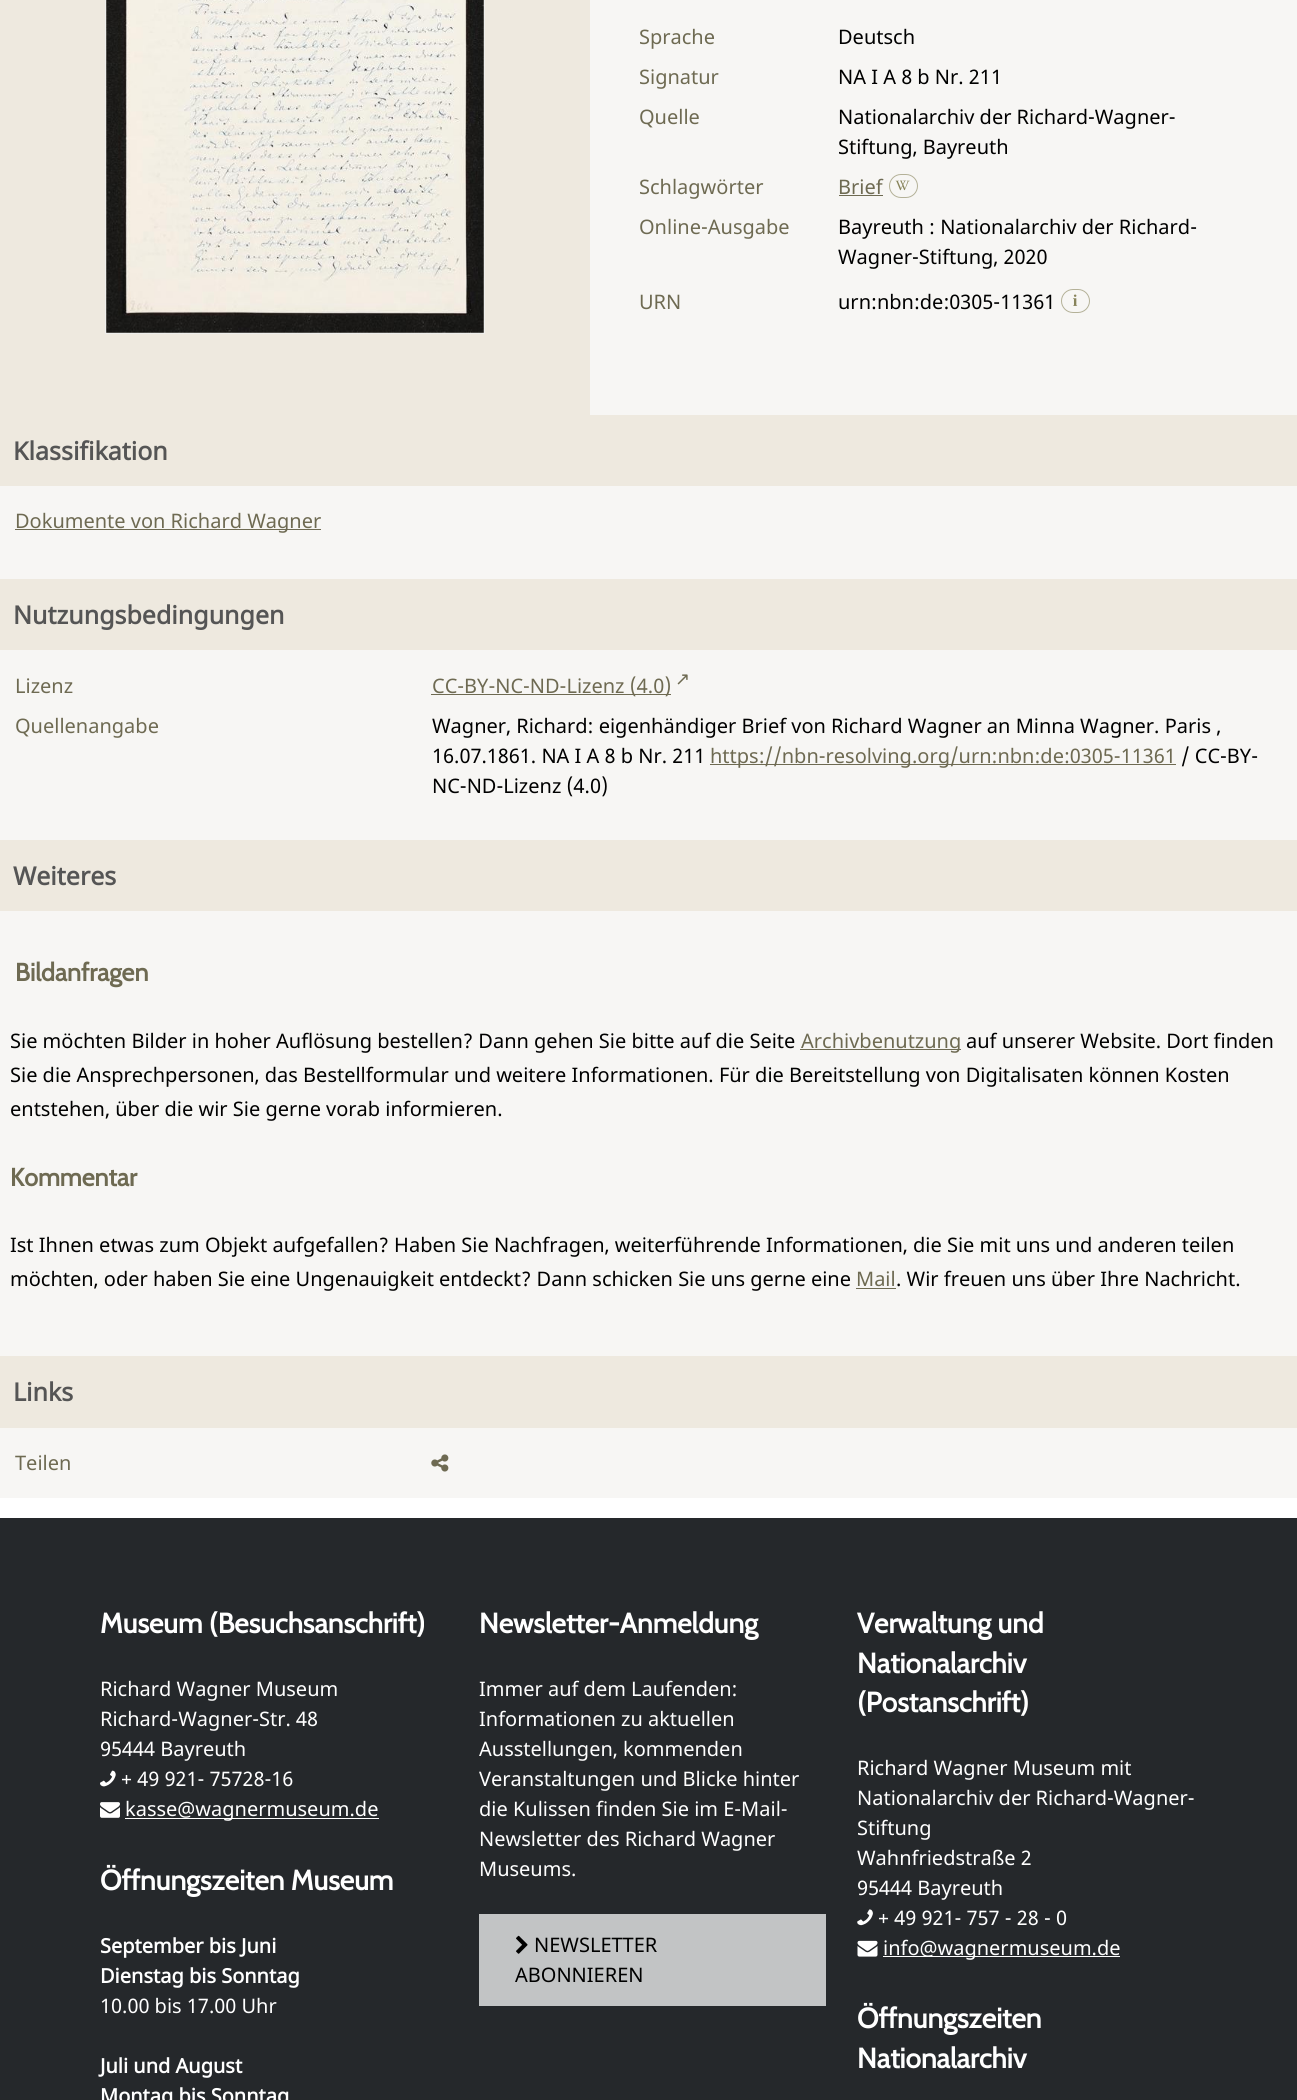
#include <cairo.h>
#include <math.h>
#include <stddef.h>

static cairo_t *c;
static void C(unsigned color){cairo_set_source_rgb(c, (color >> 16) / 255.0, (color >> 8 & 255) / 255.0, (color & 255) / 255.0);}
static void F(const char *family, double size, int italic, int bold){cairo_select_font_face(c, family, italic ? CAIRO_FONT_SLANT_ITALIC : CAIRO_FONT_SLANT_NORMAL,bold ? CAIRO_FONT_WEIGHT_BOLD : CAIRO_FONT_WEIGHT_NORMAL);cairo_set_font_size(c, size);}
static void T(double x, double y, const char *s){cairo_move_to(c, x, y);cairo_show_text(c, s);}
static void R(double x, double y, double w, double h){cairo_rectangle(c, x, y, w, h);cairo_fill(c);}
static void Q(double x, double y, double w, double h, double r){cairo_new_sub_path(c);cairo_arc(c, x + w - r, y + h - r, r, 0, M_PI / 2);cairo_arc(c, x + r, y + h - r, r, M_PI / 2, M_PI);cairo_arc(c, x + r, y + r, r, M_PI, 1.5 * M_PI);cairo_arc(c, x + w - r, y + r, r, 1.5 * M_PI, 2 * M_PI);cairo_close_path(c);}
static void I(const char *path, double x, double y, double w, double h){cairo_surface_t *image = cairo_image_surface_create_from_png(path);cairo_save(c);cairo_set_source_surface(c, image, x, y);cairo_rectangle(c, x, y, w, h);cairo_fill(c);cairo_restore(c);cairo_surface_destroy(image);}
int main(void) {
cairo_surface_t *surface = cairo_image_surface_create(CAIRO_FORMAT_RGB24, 1297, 2100);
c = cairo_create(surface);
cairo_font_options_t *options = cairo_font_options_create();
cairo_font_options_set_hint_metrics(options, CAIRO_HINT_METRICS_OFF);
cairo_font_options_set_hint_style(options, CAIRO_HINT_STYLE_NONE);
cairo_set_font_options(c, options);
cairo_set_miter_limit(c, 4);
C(0xffffff);
cairo_paint(c);
C(0xeee9df);
R(0,0,590,415);
cairo_rectangle(c,105.5,-.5,379,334);
C(0xeeeeec);
cairo_set_line_width(c,1);
cairo_stroke(c);
I("1.png",106,0,378,333);
C(0xf7f6f4);
R(590,0,707,415);
F("Noto Sans",20,0,0);
C(0x6e6a52);
T(639,44,"Sprache");
C(0x000000);
T(838,44,"Deutsch");
C(0x6e6a52);
T(639,84,"Signatur");
C(0x000000);
T(838,84,"NA I A 8 b Nr. 211");
C(0x6e6a52);
T(639,124,"Quelle");
C(0x000000);
T(838,124,"Nationalarchiv der Richard-Wagner-");
T(838,154,"Stiftung, Bayreuth");
C(0x6e6a52);
T(639,194,"Schlagwörter");
T(838,194,"Brief");
R(839,195,44,1);
Q(889.5,174.5,28,23,11.5);
C(0xb4b198);
cairo_stroke(c);
I("2.png",895,180,15,11);
C(0x6e6a52);
T(639,234,"Online-Ausgabe");
C(0x000000);
T(838,234,"Bayreuth : Nationalarchiv der Richard-");
T(838,264,"Wagner-Stiftung, 2020");
C(0x6e6a52);
T(639,309,"URN");
C(0x000000);
T(838,309,"urn:nbn:de:0305-11361");
Q(1061.5,289.5,28,23,11.5);
C(0xb4b198);
cairo_stroke(c);
I("3.png",1073,294,5,12);
C(0xf7f6f4);
R(0,486,1297,1012);
C(0xeee9df);
R(0,415,1297,71);
F("Noto Sans",25,0,1);
C(0x555555);
T(13,460,"Klassifikation");
C(0x6e6a52);
R(15,529,306,1);
F("Noto Sans",20,0,0);
T(15,528,"Dokumente von Richard Wagner");
C(0xeee9df);
R(0,579,1297,71);
F("Noto Sans",25,0,1);
C(0x555555);
T(13,624,"Nutzungsbedingungen");
F("Noto Sans",20,0,0);
C(0x6e6a52);
T(15,693,"Lizenz");
R(431,694,240,1);
T(432,693,"CC-BY-NC-ND-Lizenz (4.0)");
F("DejaVu Sans",18,0,0);
T(675,685,"↗");
F("Noto Sans",20,0,0);
T(15,733,"Quellenangabe");
C(0x000000);
T(432,733,"Wagner, Richard: eigenhändiger Brief von Richard Wagner an Minna Wagner. Paris ,");
T(432,763,"16.07.1861. NA I A 8 b Nr. 211");
C(0x6e6a52);
R(710,764,466,1);
T(710,763,"https://nbn-resolving.org/urn:nbn:de:0305-11361");
C(0x000000);
T(1181,763,"/ CC-BY-");
T(432,793,"NC-ND-Lizenz (4.0)");
C(0xeee9df);
R(0,840,1297,71);
F("Noto Sans",25,0,1);
C(0x555555);
T(13,885,"Weiteres");
F("Cabin",25,0,1);
C(0x6e6a52);
T(15,981,"Bildanfragen");
F("Noto Sans",20,0,0);
C(0x000000);
T(10,1048,"Sie möchten Bilder in hoher Auflösung bestellen? Dann gehen Sie bitte auf die Seite");
C(0x6e6a52);
R(800,1049,161,1);
T(801,1048,"Archivbenutzung");
C(0x000000);
T(966,1048,"auf unserer Website. Dort finden");
T(10,1082,"Sie die Ansprechpersonen, das Bestellformular und weitere Informationen. Für die Bereitstellung von Digitalisaten können Kosten");
T(10,1116,"entstehen, über die wir Sie gerne vorab informieren.");
F("Cabin",25,0,1);
C(0x6e6a52);
T(10,1186,"Kommentar");
F("Noto Sans",20,0,0);
C(0x000000);
T(10,1252,"Ist Ihnen etwas zum Objekt aufgefallen? Haben Sie Nachfragen, weiterführende Informationen, die Sie mit uns und anderen teilen");
T(10,1286,"möchten, oder haben Sie eine Ungenauigkeit entdeckt? Dann schicken Sie uns gerne eine");
C(0x6e6a52);
T(856,1286,"Mail");
R(856,1288,40,1);
C(0x000000);
T(896,1286,". Wir freuen uns über Ihre Nachricht.");
C(0xeee9df);
R(0,1356,1297,72);
F("Noto Sans",25,0,1);
C(0x555555);
T(13,1401,"Links");
F("Noto Sans",20,0,0);
C(0x6e6a52);
T(15,1470,"Teilen");
I("4.png",431,1454,18,18);
C(0x25282b);
R(0,1518,1297,582);
F("Cabin",28,0,1);
C(0xffffff);
T(100,1633,"Museum (Besuchsanschrift)");
F("Noto Sans",20,0,0);
T(100,1696,"Richard Wagner Museum");
T(100,1726,"Richard-Wagner-Str. 48");
T(100,1756,"95444 Bayreuth");
I("5.png",100,1770,16,17);
T(121,1786,"+ 49 921- 75728-16");
I("6.png",100,1802,20,16);
R(125,1818,254,1);
T(125,1816,"kasse@wagnermuseum.de");
F("Cabin",28,0,1);
T(100,1890,"Öffnungszeiten Museum");
F("Noto Sans",20,0,1);
T(100,1953,"September bis Juni");
T(100,1983,"Dienstag bis Sonntag");
F("Noto Sans",20,0,0);
T(100,2013,"10.00 bis 17.00 Uhr");
F("Noto Sans",20,0,1);
T(100,2073,"Juli und August");
T(100,2103,"Montag bis Sonntag");
F("Cabin",28,0,1);
T(479,1633,"Newsletter-Anmeldung");
F("Noto Sans",20,0,0);
T(479,1696,"Immer auf dem Laufenden:");
T(479,1726,"Informationen zu aktuellen");
T(479,1756,"Ausstellungen, kommenden");
T(479,1786,"Veranstaltungen und Blicke hinter");
T(479,1816,"die Kulissen finden Sie im E-Mail-");
T(479,1846,"Newsletter des Richard Wagner");
T(479,1876,"Museums.");
C(0xc2c4c5);
R(479,1914,347,92);
I("7.png",516,1935,12,19);
C(0x000000);
T(534,1952,"NEWSLETTER");
T(515,1982,"ABONNIEREN");
F("Cabin",28,0,1);
C(0xffffff);
T(857,1633,"Verwaltung und");
T(857,1673,"Nationalarchiv");
T(857,1712,"(Postanschrift)");
F("Noto Sans",20,0,0);
T(857,1775,"Richard Wagner Museum mit");
T(857,1805,"Nationalarchiv der Richard-Wagner-");
T(857,1835,"Stiftung");
T(857,1865,"Wahnfriedstraße 2");
T(857,1895,"95444 Bayreuth");
I("8.png",857,1909,16,17);
T(878,1925,"+ 49 921- 757 - 28 - 0");
I("9.png",857,1940,21,17);
R(883,1956,237,1);
T(883,1955,"info@wagnermuseum.de");
F("Cabin",28,0,1);
T(857,2028,"Öffnungszeiten");
T(857,2068,"Nationalarchiv");
cairo_surface_write_to_png(surface, "o.png");
cairo_font_options_destroy(options);
cairo_destroy(c);
cairo_surface_destroy(surface);
return 0;
}
